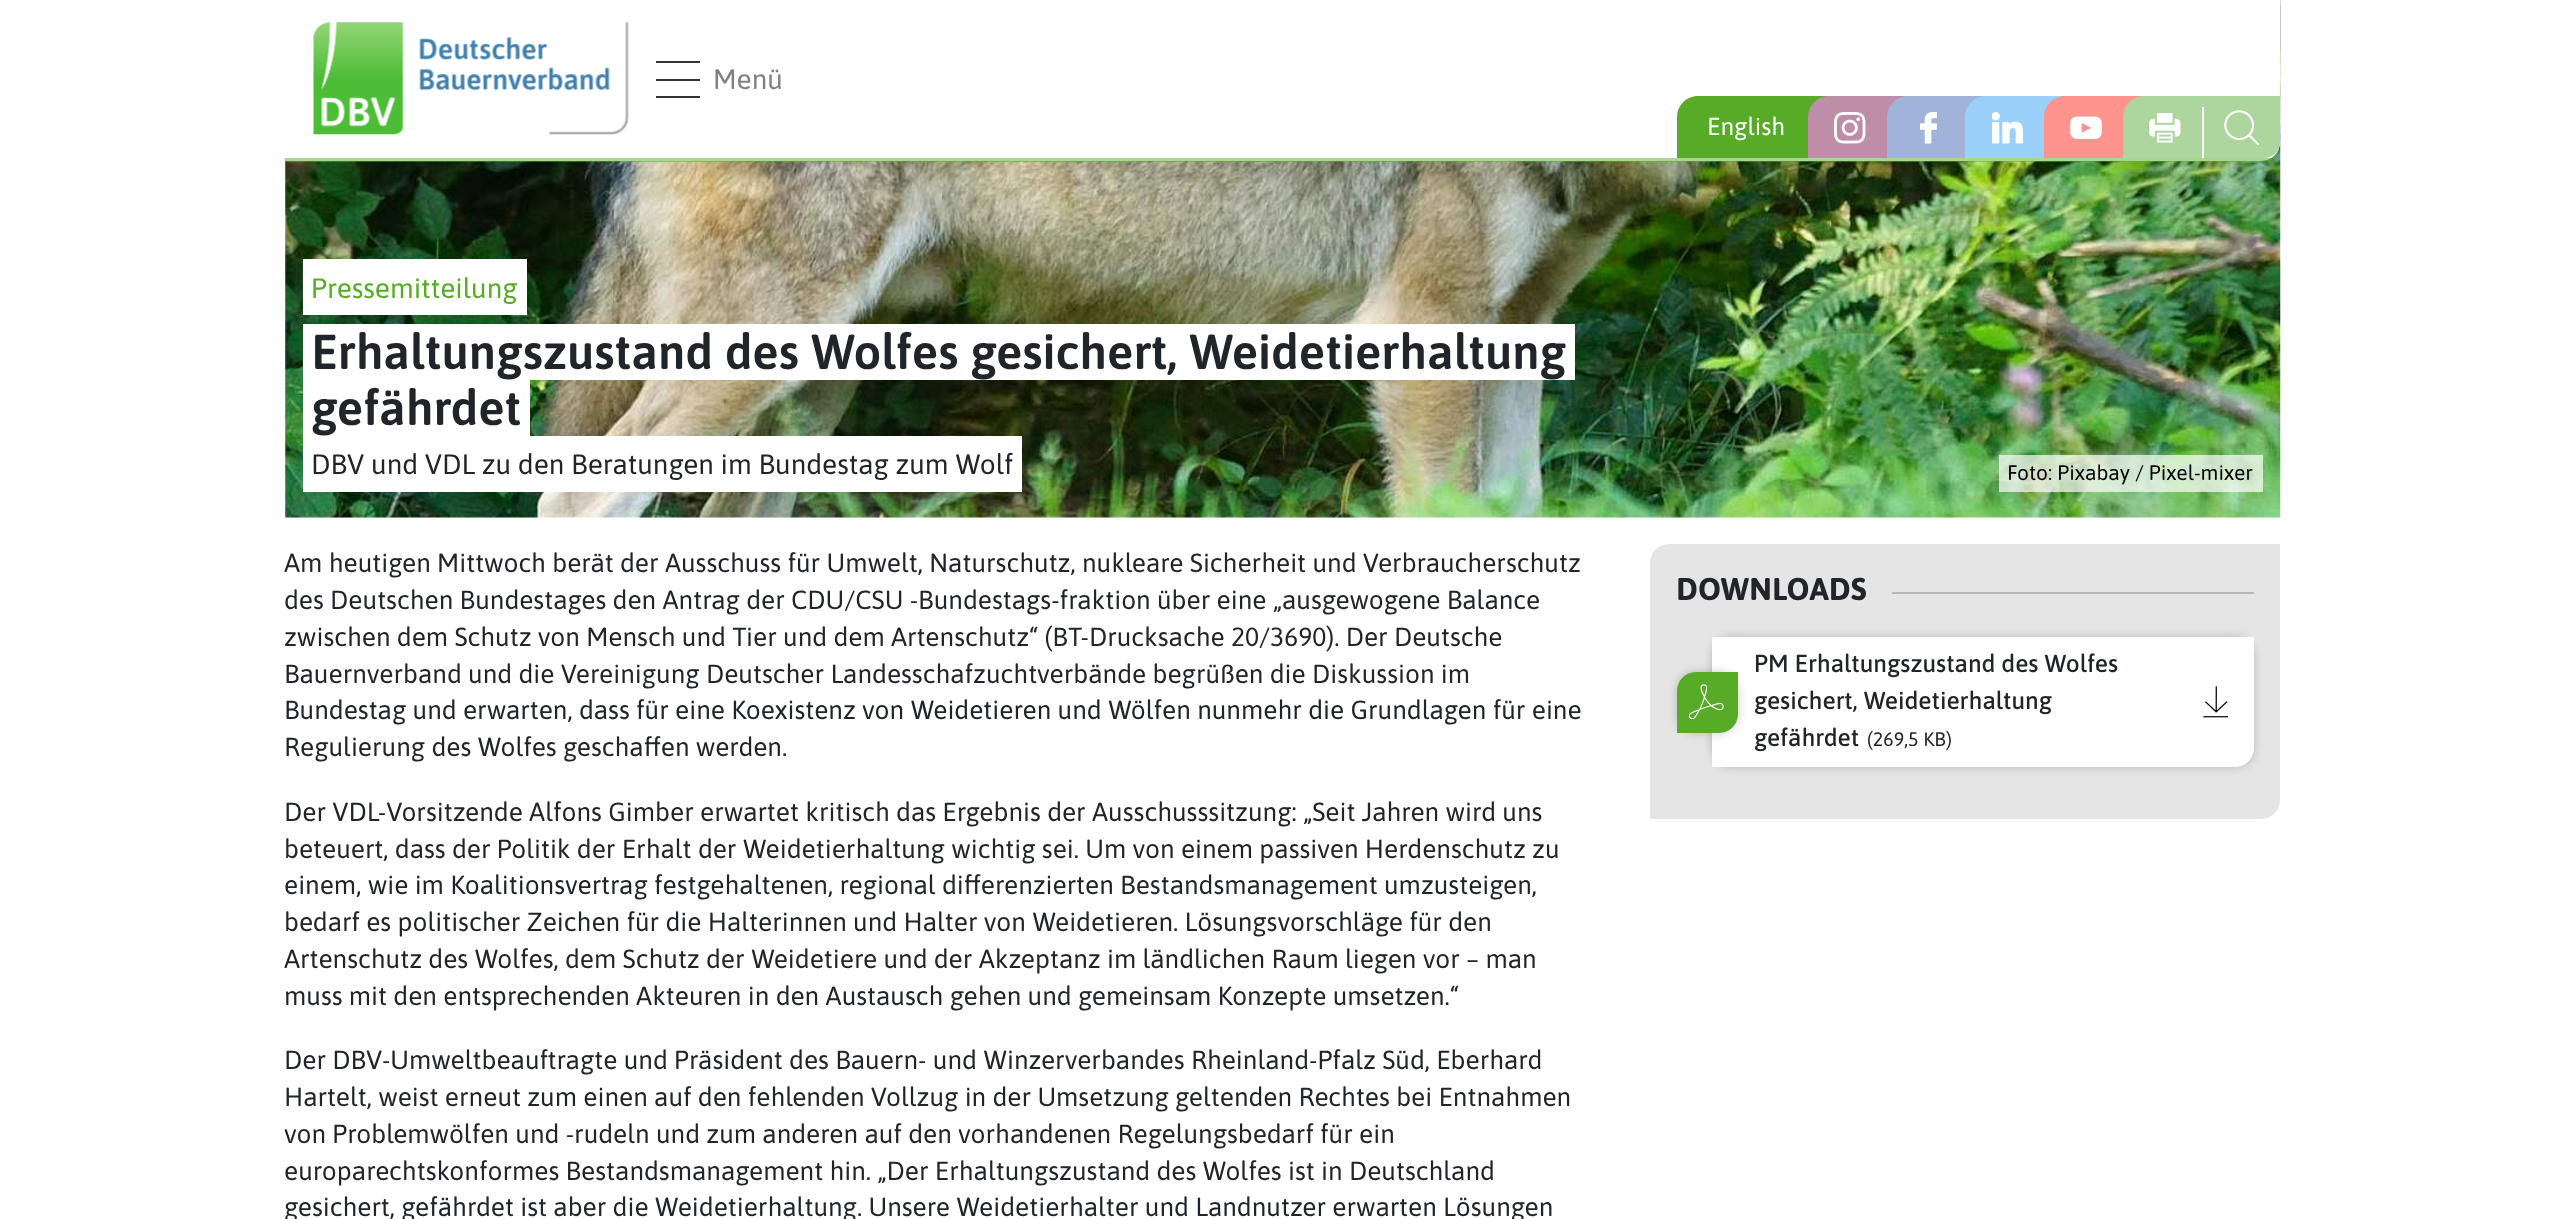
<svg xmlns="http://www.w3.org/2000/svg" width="2563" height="1219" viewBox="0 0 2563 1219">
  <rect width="100%" height="100%" fill="#fff"/>
  <image x="285" y="0" width="1996" height="518" href="img/8.png"/>
  <path d="M285 0H2280V142C2280 152.5 2271.5 161 2261 161H285Z" fill="#fff"/>
  <path d="M285 158h1987v4H285z" fill="#57ab2780"/>
  <image x="313" y="22" width="316" height="113" href="img/1.png"/>
  <path d="M656 61h44v2H656z" fill="#333"/>
  <path d="M656 79h44v2H656z" fill="#333"/>
  <path d="M656 96h44v2H656z" fill="#333"/>
  <path d="M1698 96H1852V137C1852 148.5 1842.5 158 1831 158H1677V117C1677 105.5 1686.5 96 1698 96Z" fill="#57ab27"/>
  <path d="M1829 96H1930V137C1930 148.5 1920.5 158 1909 158H1808V117C1808 105.5 1817.5 96 1829 96Z" fill="#be8da8"/>
  <image x="1834" y="112" width="32" height="32" href="img/2.png"/>
  <path d="M1908 96H2009V137C2009 148.5 1999.5 158 1988 158H1887V117C1887 105.5 1896.5 96 1908 96Z" fill="#a1b3d9"/>
  <image x="1920" y="112" width="17" height="32" href="img/3.png"/>
  <path d="M1986 96H2088V137C2088 148.5 2078.5 158 2067 158H1965V117C1965 105.5 1974.5 96 1986 96Z" fill="#9ad0f9"/>
  <image x="1992" y="112" width="31" height="32" href="img/4.png"/>
  <path d="M2065 96H2167V137C2167 148.5 2157.5 158 2146 158H2044V117C2044 105.5 2053.5 96 2065 96Z" fill="#ff938d"/>
  <image x="2070" y="116" width="32" height="23" href="img/5.png"/>
  <path d="M2144 96H2245V137C2245 148.5 2235.5 158 2224 158H2123V117C2123 105.5 2132.5 96 2144 96Z" fill="#add59e"/>
  <image x="2149" y="113" width="32" height="30" href="img/6.png"/>
  <path d="M2223 96H2280V142C2280 151 2273 158 2264 158H2202V117C2202 105.5 2211.5 96 2223 96Z" fill="#add59e"/>
  <image x="2224" y="110" width="35" height="35" href="img/7.png"/>
  <path d="M2202 107h2v51H2202z" fill="#fff"/>
  <path d="M303 259h9v56H303z" fill="#fff"/>
  <path d="M312 259h215v56H312z" fill="#fff"/>
  <path d="M303 324V380H1558H312V324Z" fill="#fff"/>
  <path d="M320 380H1575V324H1566V380Z" fill="#fff"/>
  <path d="M312 324h1254v56H312z" fill="#fff"/>
  <path d="M303 380V436H513H312V380Z" fill="#fff"/>
  <path d="M320 436H530V380H522V436Z" fill="#fff"/>
  <path d="M312 380h210v56H312z" fill="#fff"/>
  <path d="M303 436V492H1005H312V436Z" fill="#fff"/>
  <path d="M320 492H1022V436H1013V492Z" fill="#fff"/>
  <path d="M312 436h701v56H312z" fill="#fff"/>
  <path d="M1999 455V492H2245H2007V455Z" fill="#ffffffb3"/>
  <path d="M2016 492H2263V455H2254V492Z" fill="#ffffffb3"/>
  <path d="M2007 455h247v37H2007z" fill="#ffffffb3"/>
  <path d="M1669 544H2280V800C2280 810.5 2271.5 819 2261 819H1650V563C1650 552.5 1658.5 544 1669 544Z" fill="#e5e5e5"/>
  <path d="M1892 592h362v2H1892z" fill="#b7b7b7"/>
  <rect x="1712" y="637" width="542" height="130" rx="19" fill="#00000033" filter="blur(5px)"/>
  <path d="M1712 637H2254V748C2254 758.5 2245.5 767 2235 767H1712Z" fill="#fff"/>
  <rect x="1677" y="672" width="61" height="61" rx="19" fill="#00000033" filter="blur(5px)"/>
  <path d="M1696 672H1738V714C1738 724.5 1729.5 733 1719 733H1677V691C1677 680.5 1685.5 672 1696 672Z" fill="#57ab27"/>
  <image x="1689" y="684" width="35" height="35" href="img/9.png"/>
  <image x="2203" y="686" width="25" height="32" href="img/10.png"/>
  <text x="713" y="89" font-family="Asap" font-size="28" fill="#808080">Menü</text>
  <text x="1707" y="135" font-family="Asap" font-size="24.5" fill="#fff">English</text>
  <text x="311" y="298" font-family="Asap" font-size="28" fill="#57ab27">Pressemitteilung</text>
  <g font-family="Asap" font-size="49" font-weight="600" fill="#212529">
    <text x="311" y="369">Erhaltungszustand des Wolfes gesichert, Weidetierhaltung</text>
    <text x="311" y="425">gefährdet</text>
  </g>
  <text x="311" y="474" font-family="Asap" font-size="28" fill="#212529">DBV und VDL zu den Beratungen im Bundestag zum Wolf</text>
  <text x="2007" y="480" font-family="Asap" font-size="21" fill="#000">Foto: Pixabay / Pixel-mixer</text>
  <g font-family="Asap" font-size="26.25" fill="#212529">
    <text x="284" y="572">Am heutigen Mittwoch berät der Ausschuss für Umwelt, Naturschutz, nukleare Sicherheit und Verbraucherschutz</text>
    <text x="284" y="609">des Deutschen Bundestages den Antrag der CDU/CSU -Bundestags-fraktion über eine „ausgewogene Balance</text>
    <text x="284" y="646">zwischen dem Schutz von Mensch und Tier und dem Artenschutz“ (BT-Drucksache 20/3690). Der Deutsche</text>
    <text x="284" y="683">Bauernverband und die Vereinigung Deutscher Landesschafzuchtverbände begrüßen die Diskussion im</text>
    <text x="284" y="719">Bundestag und erwarten, dass für eine Koexistenz von Weidetieren und Wölfen nunmehr die Grundlagen für eine</text>
    <text x="284" y="756">Regulierung des Wolfes geschaffen werden.</text>
    <text x="284" y="821">Der VDL-Vorsitzende Alfons Gimber erwartet kritisch das Ergebnis der Ausschusssitzung: „Seit Jahren wird uns</text>
    <text x="284" y="858">beteuert, dass der Politik der Erhalt der Weidetierhaltung wichtig sei. Um von einem passiven Herdenschutz zu</text>
    <text x="284" y="894">einem, wie im Koalitionsvertrag festgehaltenen, regional differenzierten Bestandsmanagement umzusteigen,</text>
    <text x="284" y="931">bedarf es politischer Zeichen für die Halterinnen und Halter von Weidetieren. Lösungsvorschläge für den</text>
    <text x="284" y="968">Artenschutz des Wolfes, dem Schutz der Weidetiere und der Akzeptanz im ländlichen Raum liegen vor – man</text>
    <text x="284" y="1005">muss mit den entsprechenden Akteuren in den Austausch gehen und gemeinsam Konzepte umsetzen.“</text>
    <text x="284" y="1069">Der DBV-Umweltbeauftragte und Präsident des Bauern- und Winzerverbandes Rheinland-Pfalz Süd, Eberhard</text>
    <text x="284" y="1106">Hartelt, weist erneut zum einen auf den fehlenden Vollzug in der Umsetzung geltenden Rechtes bei Entnahmen</text>
    <text x="284" y="1143">von Problemwölfen und -rudeln und zum anderen auf den vorhandenen Regelungsbedarf für ein</text>
    <text x="284" y="1180">europarechtskonformes Bestandsmanagement hin. „Der Erhaltungszustand des Wolfes ist in Deutschland</text>
    <text x="284" y="1216">gesichert, gefährdet ist aber die Weidetierhaltung. Unsere Weidetierhalter und Landnutzer erwarten Lösungen</text>
  </g>
  <text x="1676" y="600" font-family="Asap" font-size="31.5" font-weight="bold" fill="#212529">DOWNLOADS</text>
  <g font-family="Asap" font-size="24.5" font-weight="500" fill="#212529">
    <text x="1754" y="672">PM Erhaltungszustand des Wolfes</text>
    <text x="1754" y="709">gesichert, Weidetierhaltung</text>
    <text x="1754" y="746">gefährdet</text>
  </g>
  <text x="1867" y="746" font-family="Asap" font-size="19.5" fill="#212529">(269,5 KB)</text>
</svg>
